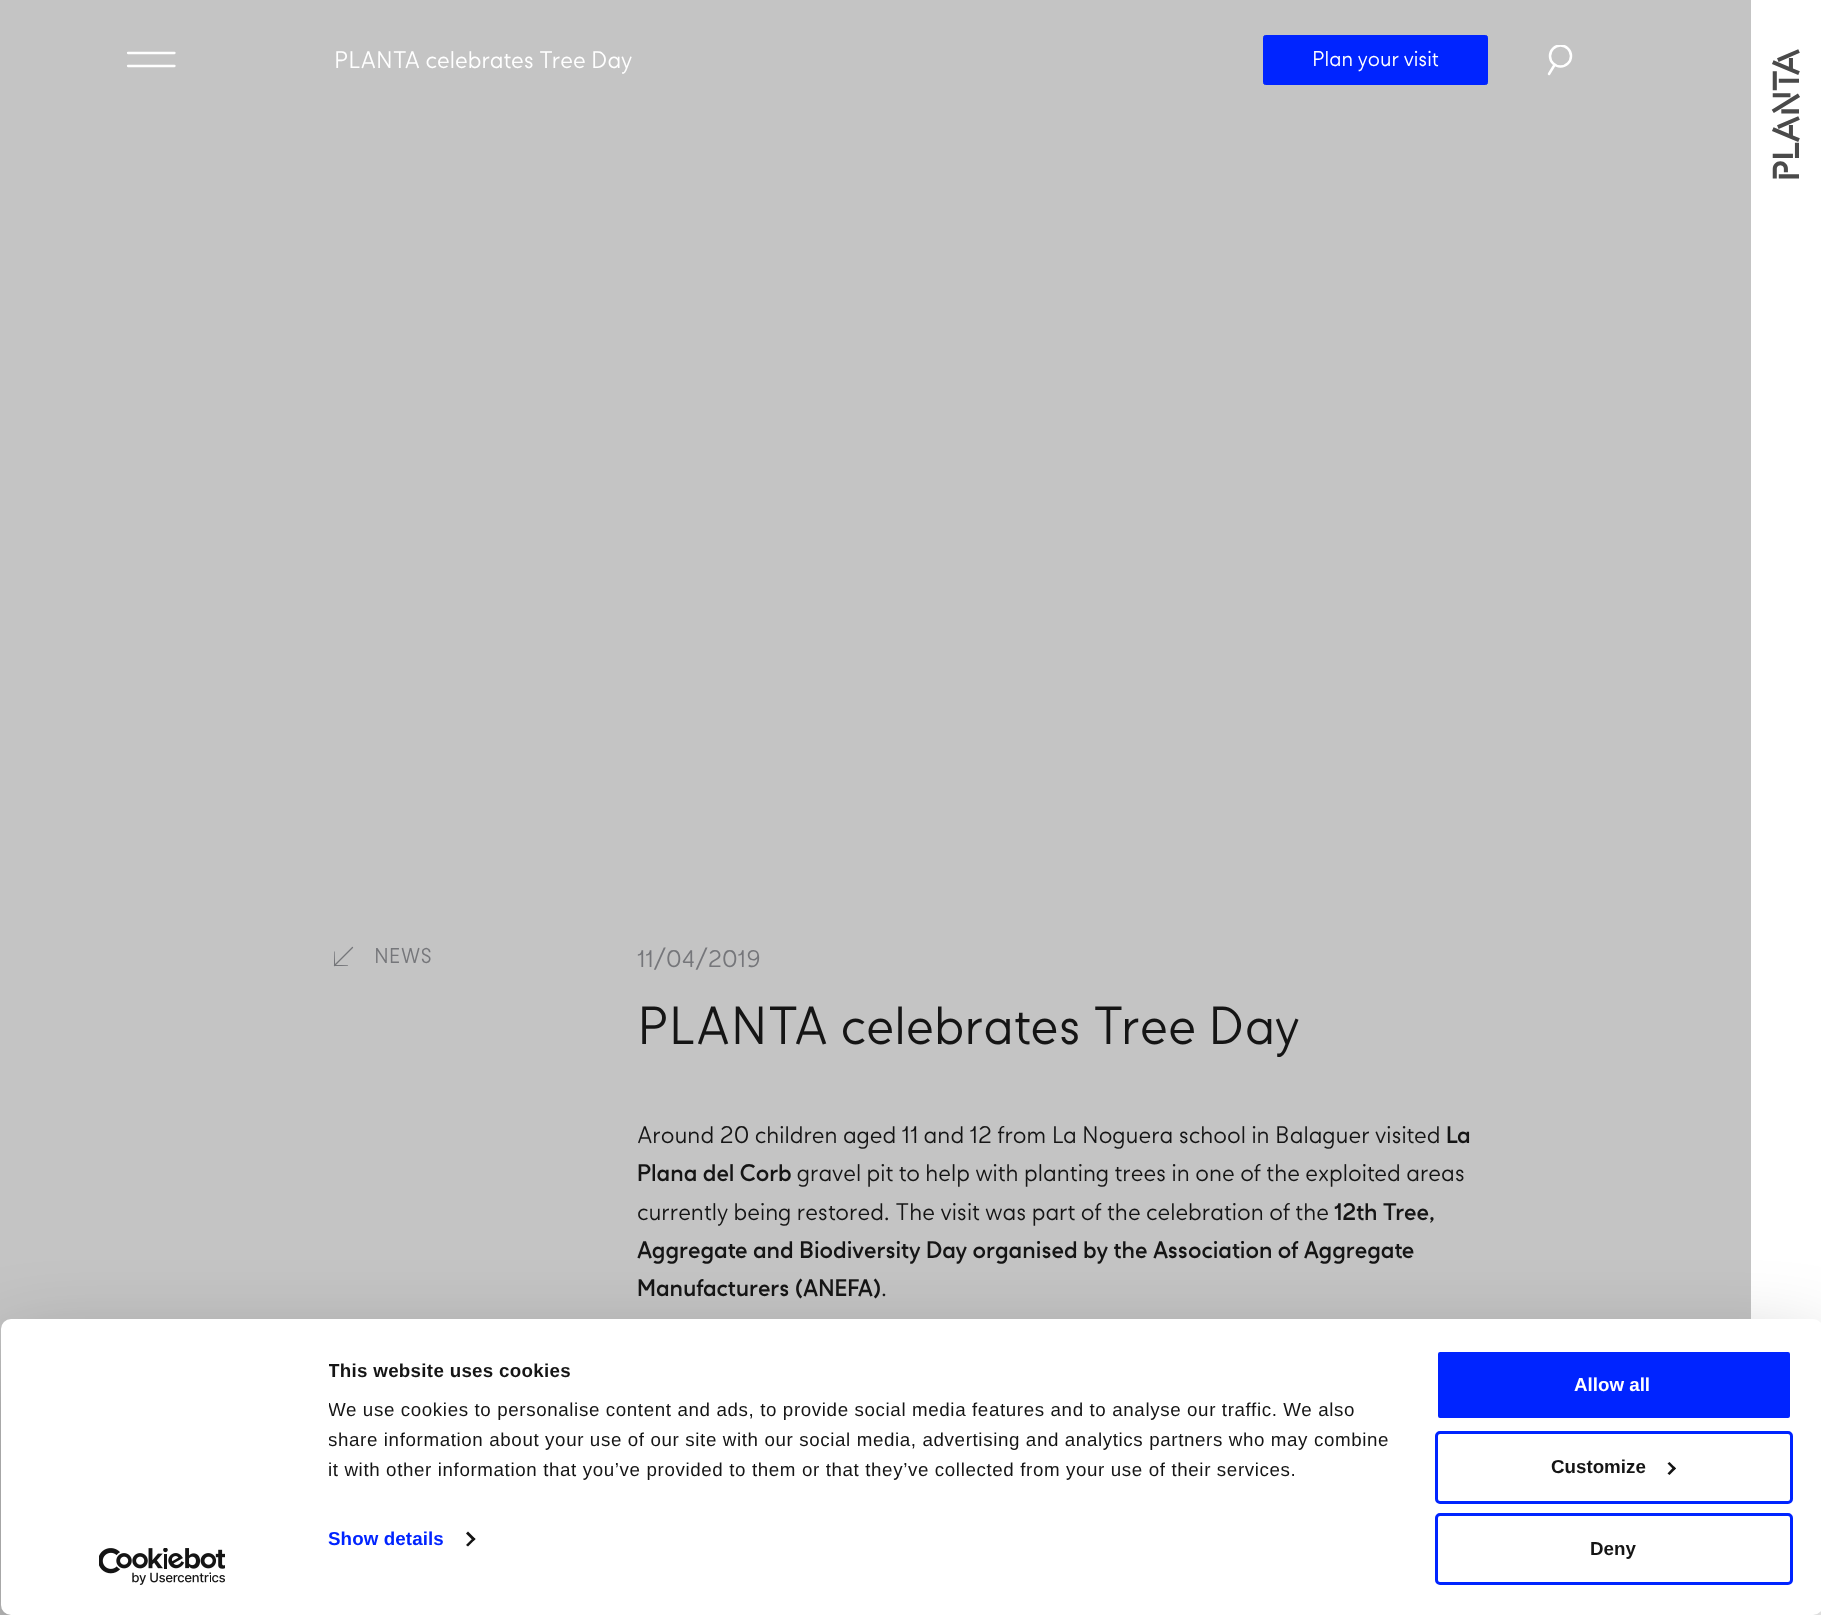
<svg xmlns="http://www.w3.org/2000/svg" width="1821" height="1615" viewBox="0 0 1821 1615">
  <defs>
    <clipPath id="clip1"><path d="M1548 45h25v31H1548z"/></clipPath>
    <clipPath id="clip2"><path d="M334 946h20v20H334z"/></clipPath>
    <clipPath id="clip3"><path d="M329 1356h1099v129H329z"/></clipPath>
  </defs>
  <rect width="100%" height="100%" fill="#c4c4c4"/>
  <path d="M128 53H174.5M128 66H174.5" fill="none" stroke="#fff" stroke-width="2.3" stroke-linecap="round"/>
  <rect x="1263.5" y="35.5" width="224" height="49" rx="2" fill="#0024ff" stroke="#0024ff"/>
  <g clip-path="url(#clip1)">
    <circle cx="1560.5" cy="56" r="10.5" fill="none" stroke="#fff" stroke-width="2.5"/>
  </g>
  <path d="M1549 74L1554.5 65Z" fill="none" stroke="#fff" stroke-width="2.5" stroke-linecap="round" stroke-linejoin="round"/>
  <path d="M1751 0h70v1615H1751z" fill="#fff"/>
  <g clip-path="url(#clip2)">
    <path d="M334 952L334.5 965.5L347.5 966" fill="none" stroke="#75767a" stroke-width="1.3" stroke-linecap="round"/>
  </g>
  <path d="M334.5 965.5L352.5 947.5" fill="none" stroke="#75767a" stroke-width="1.3" stroke-linecap="round"/>
  <rect x="1" y="1356" width="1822" height="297" rx="10" fill="#0000004d" filter="blur(44px)"/>
  <rect x="1" y="1319" width="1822" height="296" rx="10" fill="#fff"/>
  <path d="M468 1531.5L475.5 1539L473.5 1541L466 1533.5Z" fill="#141414"/>
  <path d="M473.5 1537.5L475.5 1539L468 1546.5L466 1545Z" fill="#141414"/>
  <rect x="1436.5" y="1350.5" width="355" height="69" rx="3.5" fill="#0024ff" stroke="#fff" stroke-width="3"/>
  <rect x="1436.5" y="1432.5" width="355" height="70" rx="3.5" fill="none" stroke="#0024ff" stroke-width="3"/>
  <path d="M1669.5 1462L1676 1468.5L1674 1470L1667.5 1463.5Z" fill="#141414"/>
  <path d="M1674 1466.5L1676 1468.5L1669.5 1475L1667.5 1473.5Z" fill="#141414"/>
  <rect x="1436.5" y="1514.5" width="355" height="69" rx="3.5" fill="none" stroke="#0024ff" stroke-width="3"/>
  <image x="99" y="1548" width="126" height="37" href="img/1.png"/>
  <text x="334" y="68" font-family="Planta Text" font-size="22.5" fill="#fff">PLANTA celebrates Tree Day</text>
  <text x="1312" y="66" font-family="Planta Text" font-size="20" fill="#fff">Plan your visit</text>
  <text x="1799" y="181" transform="rotate(-90 1799 181)" font-family="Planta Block" font-size="35" fill="#4a4a4a">PLANTA</text>
  <text x="374" y="963" font-family="Planta Text" font-size="20" fill="#75767a">NEWS</text>
  <text x="637" y="967" font-family="Planta Text" font-size="22.5" fill="#75767a">11/04/2019</text>
  <text x="637" y="1044" font-family="Planta Text" font-size="50" fill="#151515">PLANTA celebrates Tree Day</text>
  <text x="637" y="1143" font-family="Planta Text" font-size="22.5" fill="#151515">Around 20 children aged 11 and 12 from La Noguera school in Balaguer visited</text>
  <g font-family="Planta Text" font-size="22.5" font-weight="bold" fill="#151515">
    <text x="1446" y="1143">La</text>
    <text x="637" y="1181">Plana del Corb</text>
  </g>
  <g font-family="Planta Text" font-size="22.5" fill="#151515">
    <text x="797" y="1181">gravel pit to help with planting trees in one of the exploited areas</text>
    <text x="637" y="1220">currently being restored. The visit was part of the celebration of the</text>
  </g>
  <g font-family="Planta Text" font-size="22.5" font-weight="bold" fill="#151515">
    <text x="1334" y="1220">12th Tree,</text>
    <text x="637" y="1258">Aggregate and Biodiversity Day organised by the Association of Aggregate</text>
    <text x="637" y="1296">Manufacturers (ANEFA)</text>
  </g>
  <text x="881" y="1296" font-family="Planta Text" font-size="22.5" fill="#151515">.</text>
  <g clip-path="url(#clip3)">
    <text x="328" y="1377" font-family="Liberation Sans" font-size="18.75" font-weight="bold" letter-spacing="0.3" fill="#151515">This website uses cookies</text>
    <g font-family="Liberation Sans" font-size="18.75" letter-spacing="0.62" fill="#151515">
      <text x="328" y="1416">We use cookies to personalise content and ads, to provide social media features and to analyse our traffic. We also</text>
      <text x="328" y="1446">share information about your use of our site with our social media, advertising and analytics partners who may combine</text>
      <text x="328" y="1476">it with other information that you’ve provided to them or that they’ve collected from your use of their services.</text>
    </g>
  </g>
  <text x="328" y="1545" font-family="Liberation Sans" font-size="18.75" font-weight="bold" letter-spacing="0.1" fill="#0024ff">Show details</text>
  <text x="1574" y="1391" font-family="Liberation Sans" font-size="18.75" font-weight="bold" fill="#fff">Allow all</text>
  <g font-family="Liberation Sans" font-size="18.75" font-weight="bold" fill="#151515">
    <text x="1551" y="1473">Customize</text>
    <text x="1590" y="1555">Deny</text>
  </g>
</svg>
